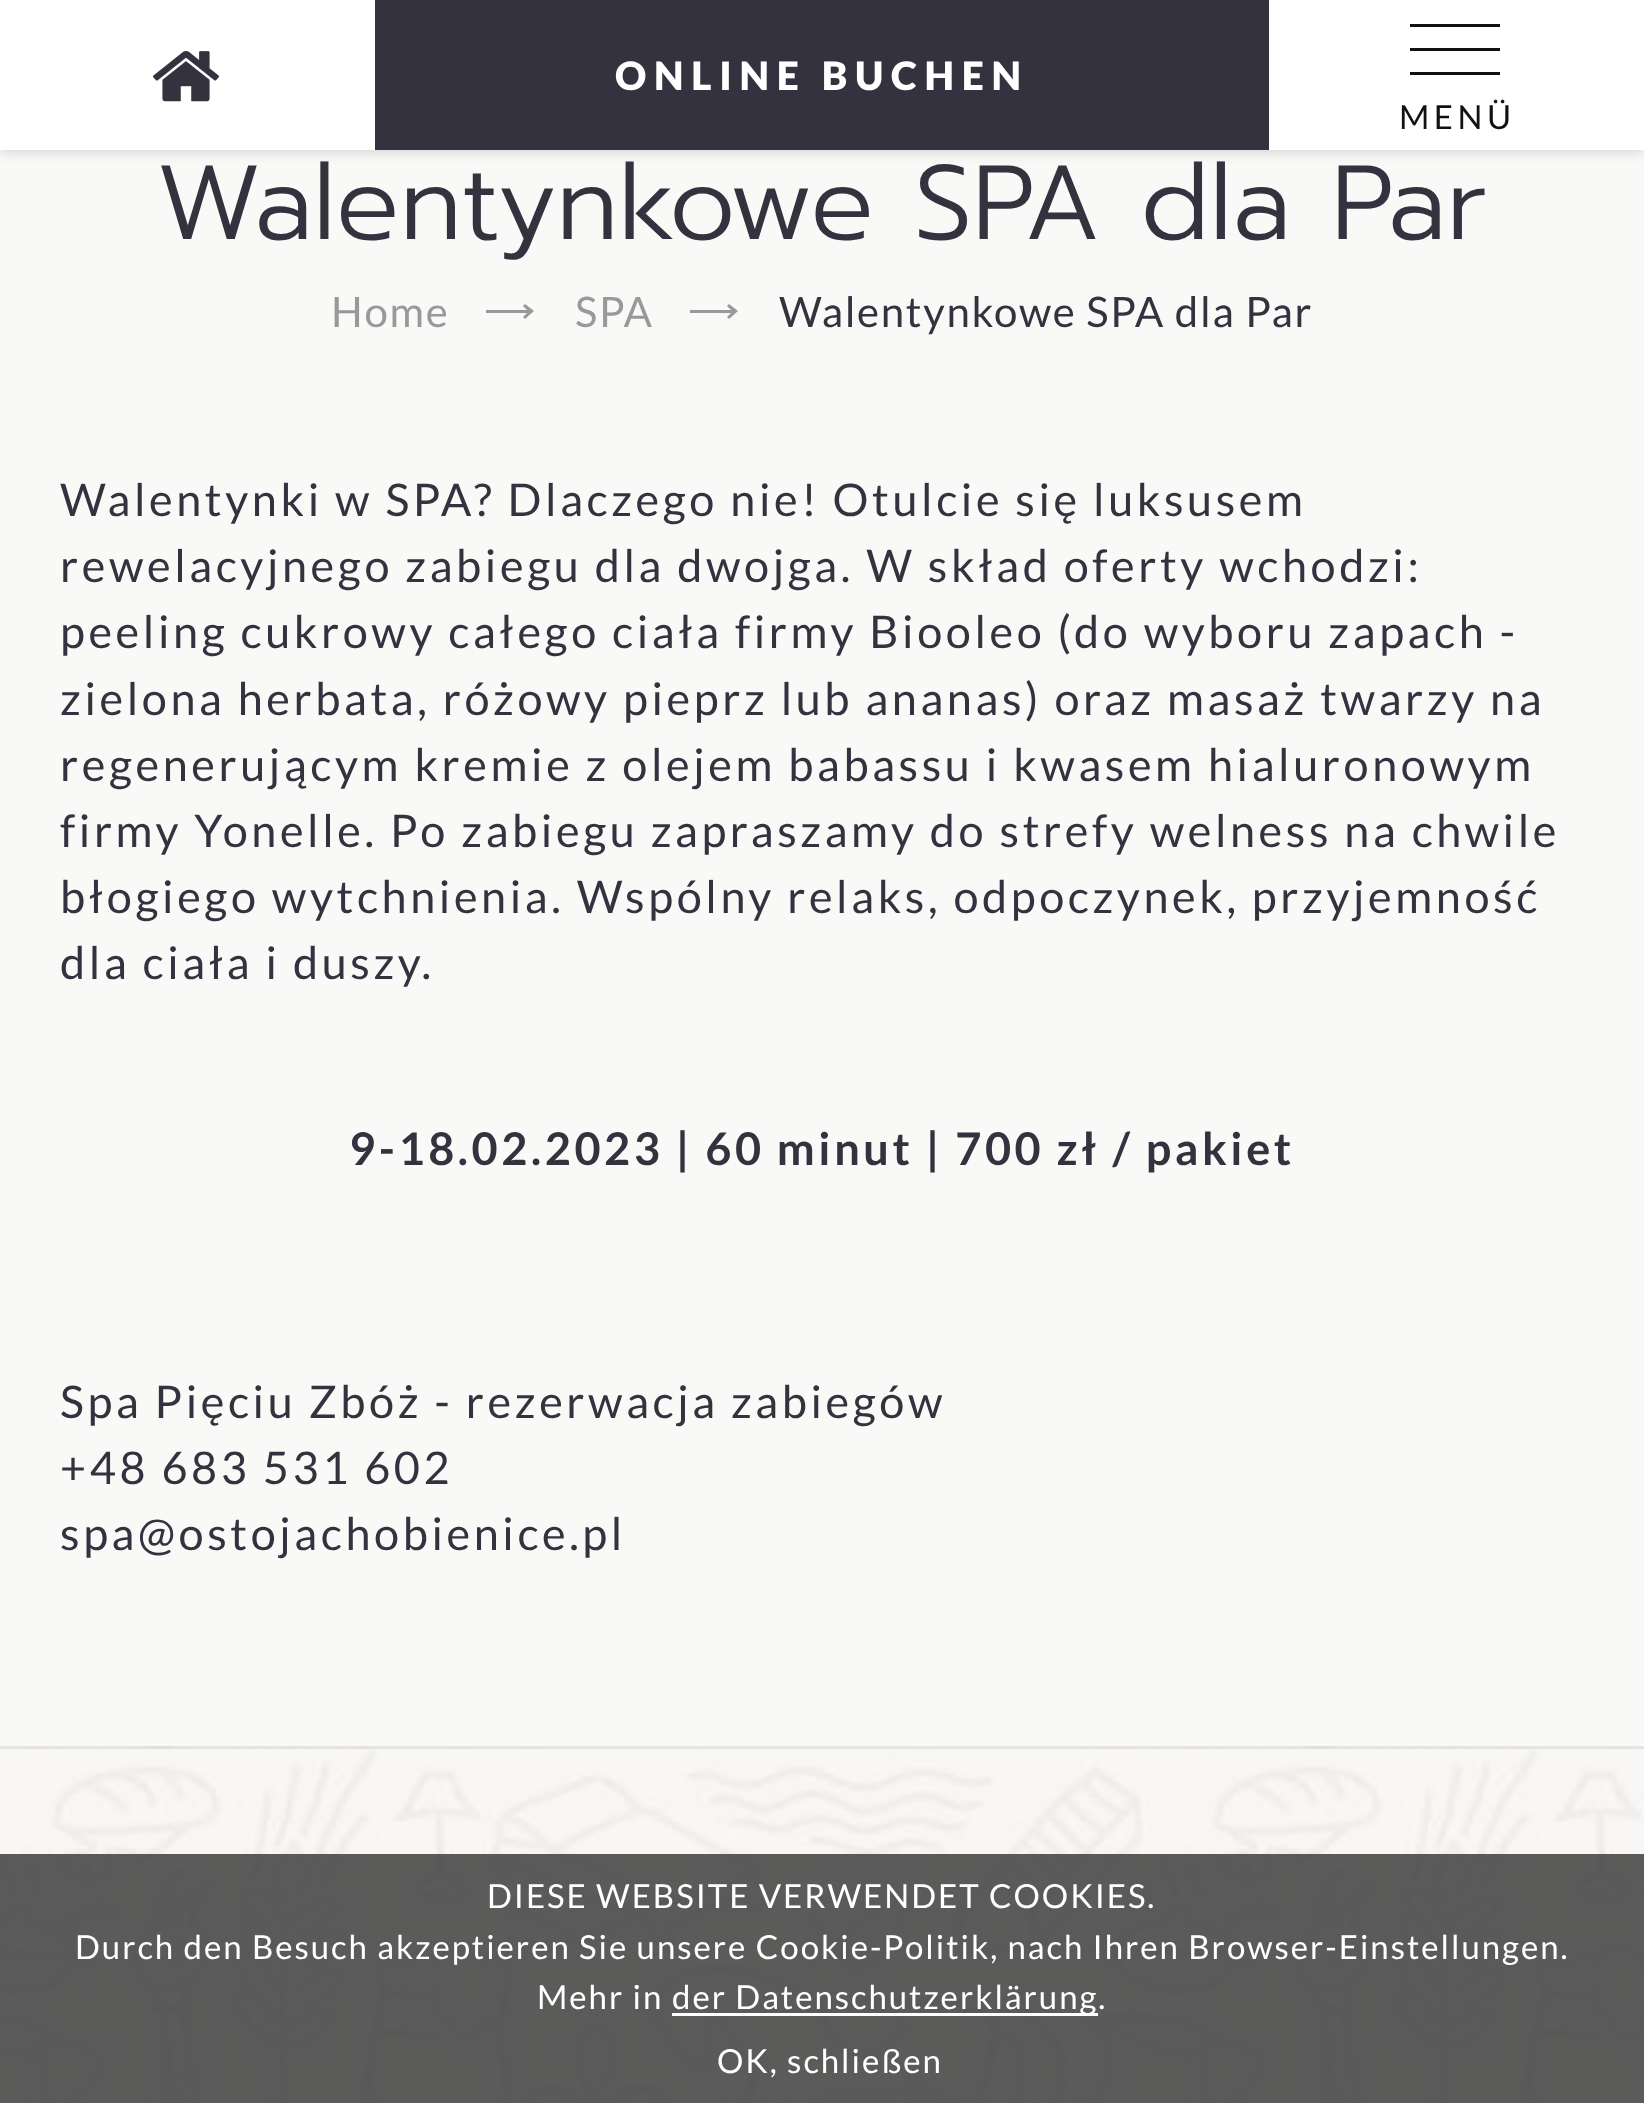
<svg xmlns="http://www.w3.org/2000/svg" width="1644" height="2103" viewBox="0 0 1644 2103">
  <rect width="100%" height="100%" fill="#f9f9f7"/>
  <path d="M0 0h1644v150H0z" fill="#00000033" filter="blur(7.5px)"/>
  <path d="M0 0h1644v150H0z" fill="#fff"/>
  <image x="153" y="51" width="66" height="51" href="img/1.png"/>
  <path d="M375 0h894v150H375z" fill="#34323f"/>
  <path d="M1410 24h90v3H1410z" fill="#111"/>
  <path d="M1410 48h90v3H1410z" fill="#111"/>
  <path d="M1410 72h90v3H1410z" fill="#111"/>
  <path d="M525 304L523 306L527 310H486V313H527L523 317L525 319L534 311Z" fill="#999"/>
  <path d="M729 304L727 306L731 310H690V313H731L727 317L729 319L738 311Z" fill="#999"/>
  <image x="0" y="1746" width="1644" height="357" href="img/2.png"/>
  <path d="M0 1746h1644v3H0z" fill="#cdcdcd73"/>
  <path d="M0 1854h1644v249H0z" fill="#333333cc"/>
  <path d="M672 2013h426v3H672z" fill="#fff"/>
  <text x="615" y="90" font-family="Lato" font-size="39" font-weight="900" letter-spacing="7.75" fill="#fff">ONLINE BUCHEN</text>
  <text x="1399" y="129" font-family="Lato" font-size="33" letter-spacing="4.5" fill="#111">MENÜ</text>
  <text x="156" y="239" font-family="Prompt" font-size="105" font-weight="300" fill="#34323f">Walentynkowe SPA dla Par</text>
  <g font-family="Lato" font-size="42" letter-spacing="1.7" fill="#999">
    <text x="331" y="327">Home</text>
    <text x="575" y="327">SPA</text>
  </g>
  <text x="779" y="327" font-family="Lato" font-size="42" letter-spacing="1.7" fill="#34323f">Walentynkowe SPA dla Par</text>
  <g font-family="Lato" font-size="45" letter-spacing="3.6" fill="#34323f">
    <text x="60" y="516">Walentynki w SPA? Dlaczego nie! Otulcie się luksusem</text>
    <text x="60" y="582">rewelacyjnego zabiegu dla dwojga. W skład oferty wchodzi:</text>
    <text x="60" y="648">peeling cukrowy całego ciała firmy Biooleo (do wyboru zapach -</text>
    <text x="60" y="715">zielona herbata, różowy pieprz lub ananas) oraz masaż twarzy na</text>
    <text x="60" y="781">regenerującym kremie z olejem babassu i kwasem hialuronowym</text>
    <text x="60" y="847">firmy Yonelle. Po zabiegu zapraszamy do strefy welness na chwile</text>
    <text x="60" y="913">błogiego wytchnienia. Wspólny relaks, odpoczynek, przyjemność</text>
    <text x="60" y="979">dla ciała i duszy.</text>
  </g>
  <text x="349" y="1165" font-family="Lato" font-size="45" font-weight="bold" letter-spacing="3.6" fill="#34323f">9-18.02.2023 | 60 minut | 700 zł / pakiet</text>
  <g font-family="Lato" font-size="45" letter-spacing="3.6" fill="#34323f">
    <text x="60" y="1418">Spa Pięciu Zbóż - rezerwacja zabiegów</text>
    <text x="60" y="1484">+48 683 531 602</text>
    <text x="60" y="1550">spa@ostojachobienice.pl</text>
  </g>
  <g font-family="Lato" font-size="33" letter-spacing="1.98" fill="#fff">
    <text x="487" y="1908">DIESE WEBSITE VERWENDET COOKIES.</text>
    <text x="75" y="1959">Durch den Besuch akzeptieren Sie unsere Cookie-Politik, nach Ihren Browser-Einstellungen.</text>
    <text x="537" y="2009">Mehr in</text>
    <text x="672" y="2009">der Datenschutzerklärung.</text>
    <text x="717" y="2073">OK, schließen</text>
  </g>
</svg>
